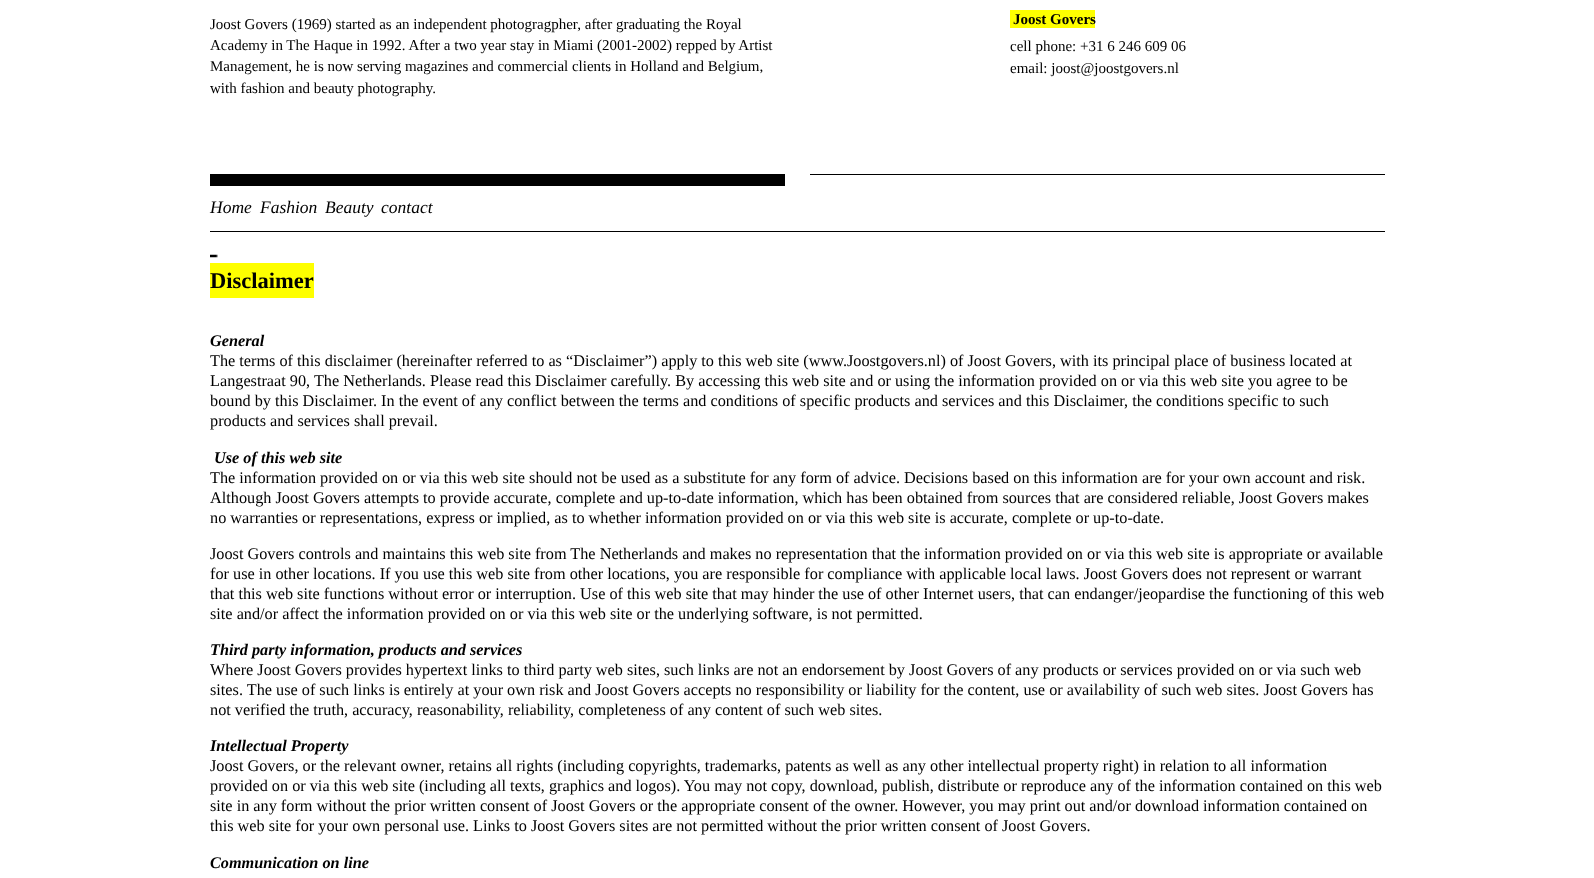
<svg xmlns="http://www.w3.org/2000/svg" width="1594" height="878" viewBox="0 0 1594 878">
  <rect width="100%" height="100%" fill="#fff"/>
  <path d="M210 174h575v12H210z" fill="#000"/>
  <path d="M810 174h575v1H810z" fill="#000"/>
  <path d="M1010 10h85v18H1010z" fill="#feff00"/>
  <path d="M210 231h1175v1H210z" fill="#000"/>
  <image x="210" y="254" width="8" height="4" href="img/1.png"/>
  <path d="M210 263h104v35H210z" fill="#feff00"/>
  <g font-family="Liberation Serif" font-size="15" fill="#000">
    <text x="210" y="29">Joost Govers (1969) started as an independent photogragpher, after graduating the Royal</text>
    <text x="210" y="50">Academy in The Haque in 1992. After a two year stay in Miami (2001-2002) repped by Artist</text>
    <text x="210" y="71">Management, he is now serving magazines and commercial clients in Holland and Belgium,</text>
    <text x="210" y="93">with fashion and beauty photography.</text>
  </g>
  <text x="1013" y="24" font-family="Liberation Serif" font-size="15" font-weight="bold" fill="#000">Joost Govers</text>
  <g font-family="Liberation Serif" font-size="15" fill="#000">
    <text x="1010" y="51">cell phone: +31 6 246 609 06</text>
    <text x="1010" y="73">email: joost@joostgovers.nl</text>
  </g>
  <g font-family="Liberation Serif" font-size="17.5" font-style="italic" fill="#000">
    <text x="210" y="213">Home</text>
    <text x="260" y="213">Fashion</text>
    <text x="325" y="213">Beauty</text>
    <text x="381" y="213">contact</text>
  </g>
  <text x="210" y="288" font-family="Liberation Serif" font-size="22.5" font-weight="bold" fill="#000">Disclaimer</text>
  <text x="210" y="346" font-family="Liberation Serif" font-size="16.25" font-weight="bold" font-style="italic" fill="#000">General</text>
  <g font-family="Liberation Serif" font-size="16.25" fill="#000">
    <text x="210" y="366">The terms of this disclaimer (hereinafter referred to as “Disclaimer”) apply to this web site (www.Joostgovers.nl) of Joost Govers, with its principal place of business located at</text>
    <text x="210" y="386">Langestraat 90, The Netherlands. Please read this Disclaimer carefully. By accessing this web site and or using the information provided on or via this web site you agree to be</text>
    <text x="210" y="406">bound by this Disclaimer. In the event of any conflict between the terms and conditions of specific products and services and this Disclaimer, the conditions specific to such</text>
    <text x="210" y="426">products and services shall prevail.</text>
  </g>
  <text x="214" y="463" font-family="Liberation Serif" font-size="16.25" font-weight="bold" font-style="italic" fill="#000">Use of this web site</text>
  <g font-family="Liberation Serif" font-size="16.25" fill="#000">
    <text x="210" y="483">The information provided on or via this web site should not be used as a substitute for any form of advice. Decisions based on this information are for your own account and risk.</text>
    <text x="210" y="503">Although Joost Govers attempts to provide accurate, complete and up-to-date information, which has been obtained from sources that are considered reliable, Joost Govers makes</text>
    <text x="210" y="523">no warranties or representations, express or implied, as to whether information provided on or via this web site is accurate, complete or up-to-date.</text>
    <text x="210" y="559">Joost Govers controls and maintains this web site from The Netherlands and makes no representation that the information provided on or via this web site is appropriate or available</text>
    <text x="210" y="579">for use in other locations. If you use this web site from other locations, you are responsible for compliance with applicable local laws. Joost Govers does not represent or warrant</text>
    <text x="210" y="599">that this web site functions without error or interruption. Use of this web site that may hinder the use of other Internet users, that can endanger/jeopardise the functioning of this web</text>
    <text x="210" y="619">site and/or affect the information provided on or via this web site or the underlying software, is not permitted.</text>
  </g>
  <text x="210" y="655" font-family="Liberation Serif" font-size="16.25" font-weight="bold" font-style="italic" fill="#000">Third party information, products and services</text>
  <g font-family="Liberation Serif" font-size="16.25" fill="#000">
    <text x="210" y="675">Where Joost Govers provides hypertext links to third party web sites, such links are not an endorsement by Joost Govers of any products or services provided on or via such web</text>
    <text x="210" y="695">sites. The use of such links is entirely at your own risk and Joost Govers accepts no responsibility or liability for the content, use or availability of such web sites. Joost Govers has</text>
    <text x="210" y="715">not verified the truth, accuracy, reasonability, reliability, completeness of any content of such web sites.</text>
  </g>
  <text x="210" y="751" font-family="Liberation Serif" font-size="16.25" font-weight="bold" font-style="italic" fill="#000">Intellectual Property</text>
  <g font-family="Liberation Serif" font-size="16.25" fill="#000">
    <text x="210" y="771">Joost Govers, or the relevant owner, retains all rights (including copyrights, trademarks, patents as well as any other intellectual property right) in relation to all information</text>
    <text x="210" y="791">provided on or via this web site (including all texts, graphics and logos). You may not copy, download, publish, distribute or reproduce any of the information contained on this web</text>
    <text x="210" y="811">site in any form without the prior written consent of Joost Govers or the appropriate consent of the owner. However, you may print out and/or download information contained on</text>
    <text x="210" y="831">this web site for your own personal use. Links to Joost Govers sites are not permitted without the prior written consent of Joost Govers.</text>
  </g>
  <text x="210" y="868" font-family="Liberation Serif" font-size="16.25" font-weight="bold" font-style="italic" fill="#000">Communication on line</text>
</svg>
